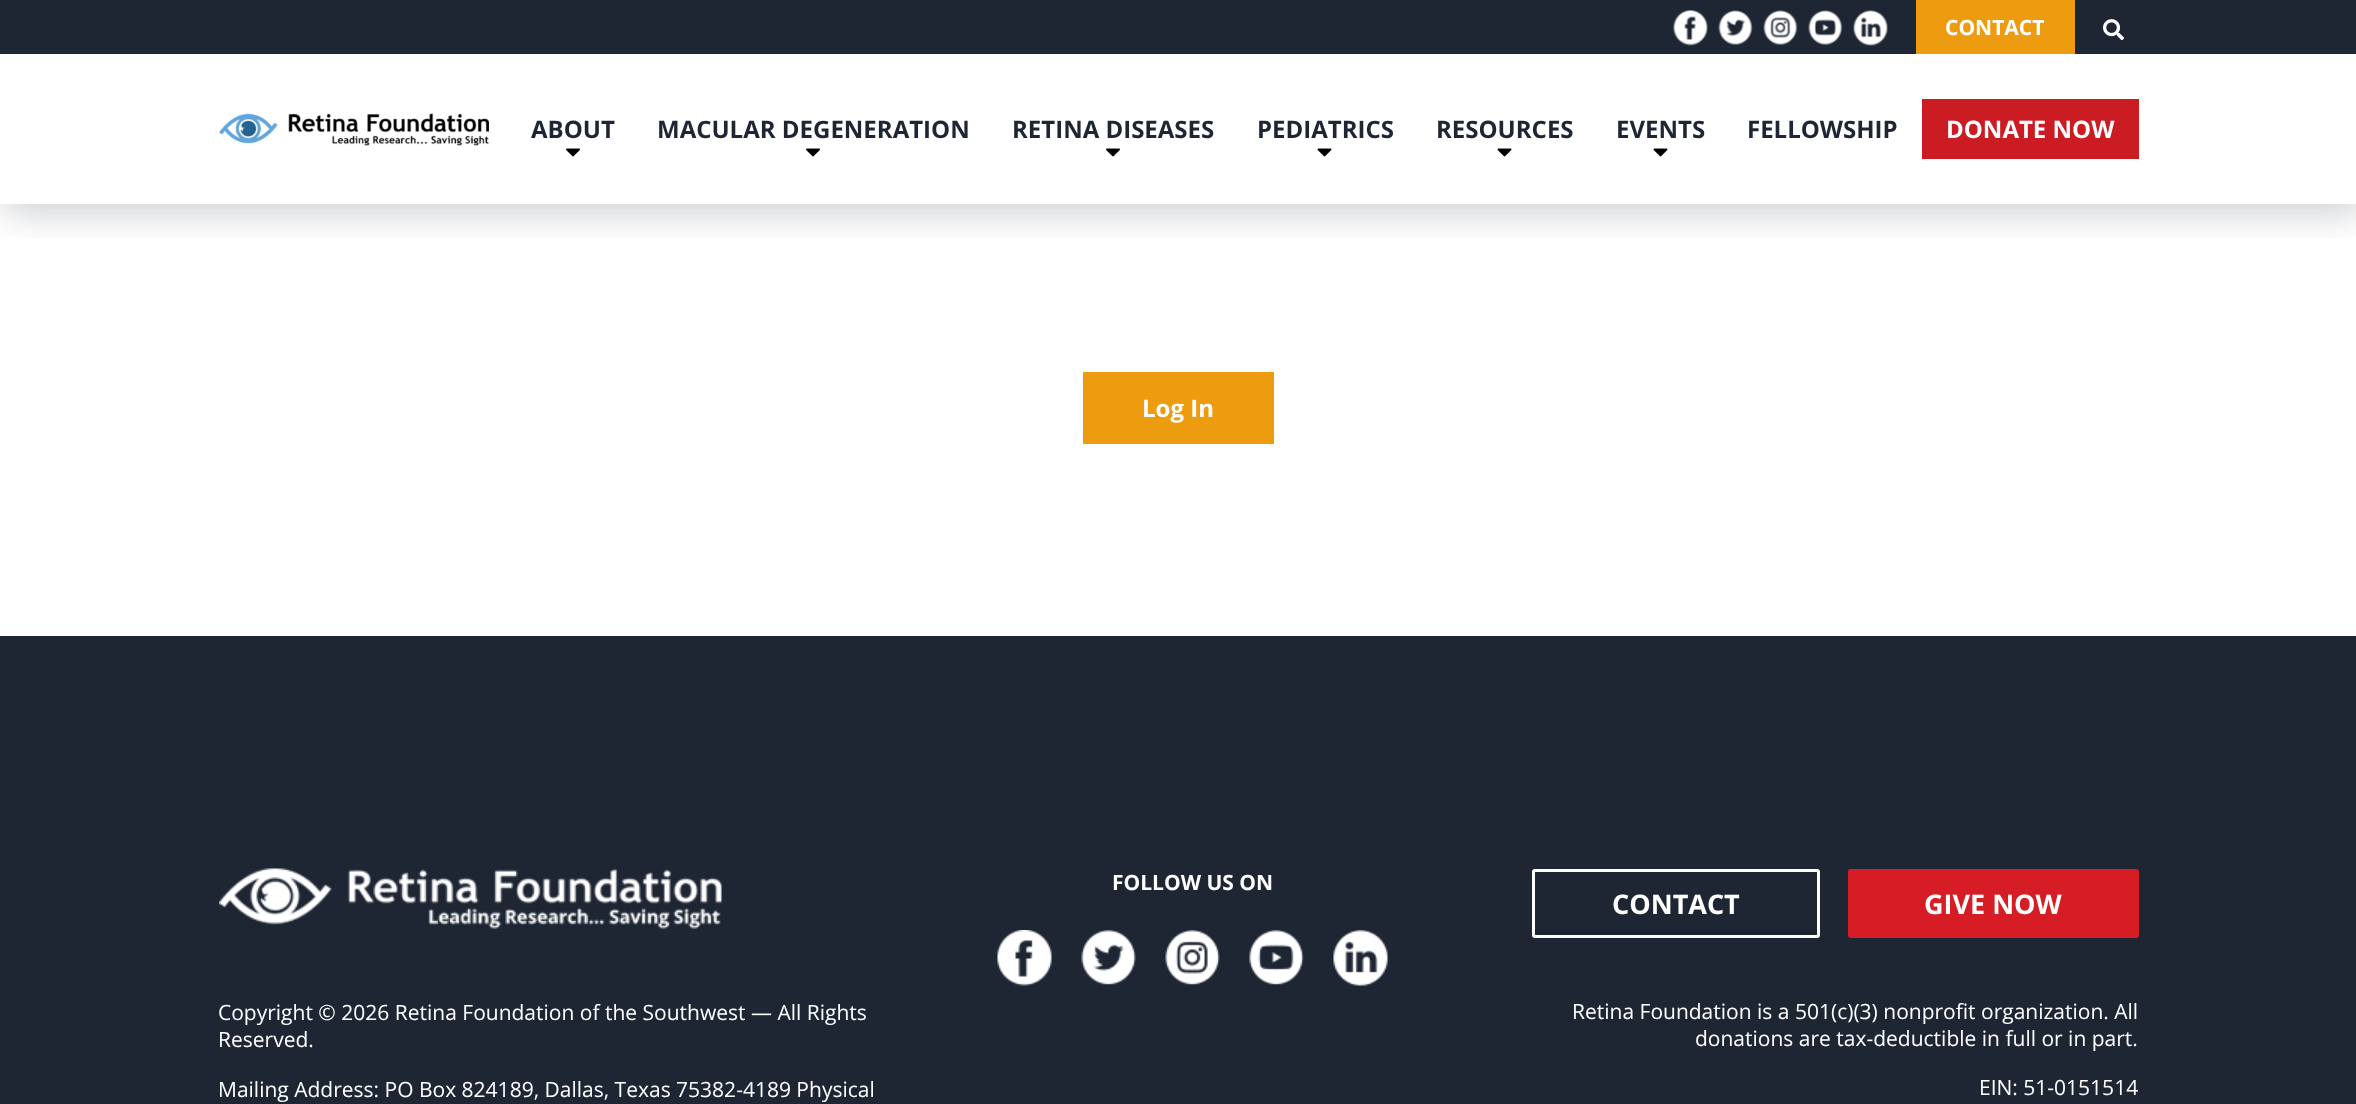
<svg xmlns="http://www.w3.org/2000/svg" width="2356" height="1104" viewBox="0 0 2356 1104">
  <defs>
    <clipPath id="clip1"><path d="M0 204h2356v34H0z"/></clipPath>
  </defs>
  <rect width="100%" height="100%" fill="#fff"/>
  <g clip-path="url(#clip1)">
    <path d="M3 5h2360v207H3z" fill="#1e26343b" filter="blur(19px)"/>
  </g>
  <path d="M0 0h2356v54H0z" fill="#1e2634"/>
  <image x="1673" y="10" width="35" height="36" href="img/1.png"/>
  <image x="1718" y="10" width="35" height="35" href="img/2.png"/>
  <image x="1763" y="10" width="35" height="35" href="img/3.png"/>
  <image x="1808" y="10" width="35" height="35" href="img/4.png"/>
  <image x="1853" y="10" width="35" height="36" href="img/5.png"/>
  <path d="M1916 0h159v54H1916z" fill="#ee9c0f"/>
  <image x="2103" y="19" width="21" height="22" href="img/6.png"/>
  <image x="219" y="113" width="270" height="33" href="img/7.png"/>
  <image x="566" y="148" width="14" height="9" href="img/8.png"/>
  <image x="806" y="148" width="14" height="9" href="img/8.png"/>
  <image x="1106" y="148" width="14" height="9" href="img/8.png"/>
  <image x="1317" y="148" width="15" height="9" href="img/9.png"/>
  <image x="1497" y="148" width="15" height="9" href="img/9.png"/>
  <image x="1653" y="148" width="15" height="9" href="img/9.png"/>
  <path d="M1922 99h217v60H1922z" fill="#cb1c24"/>
  <path d="M1083 372h191v72H1083z" fill="#ee9c0f"/>
  <path d="M0 636h2356v468H0z" fill="#1e2634"/>
  <image x="997" y="930" width="55" height="56" href="img/10.png"/>
  <image x="1081" y="930" width="55" height="55" href="img/11.png"/>
  <image x="1165" y="930" width="55" height="55" href="img/12.png"/>
  <image x="1249" y="930" width="55" height="55" href="img/13.png"/>
  <image x="1333" y="930" width="55" height="56" href="img/14.png"/>
  <image x="219" y="868" width="503" height="61" href="img/15.png"/>
  <rect x="1533.5" y="870.5" width="285" height="66" rx="1.5" fill="none" stroke="#fff" stroke-width="3"/>
  <rect x="1848" y="869" width="291" height="69" rx="3" fill="#d61c24"/>
  <text x="1945" y="35" font-family="Open Sans" font-size="21" font-weight="bold" fill="#fff">CONTACT</text>
  <g font-family="Open Sans" font-size="24" font-weight="bold" fill="#1e2634">
    <text x="531" y="138">ABOUT</text>
    <text x="657" y="138">MACULAR DEGENERATION</text>
    <text x="1012" y="138">RETINA DISEASES</text>
    <text x="1257" y="138">PEDIATRICS</text>
    <text x="1436" y="138">RESOURCES</text>
    <text x="1616" y="138">EVENTS</text>
    <text x="1747" y="138">FELLOWSHIP</text>
  </g>
  <g font-family="Open Sans" font-size="24" font-weight="bold" fill="#fff">
    <text x="1946" y="138">DONATE NOW</text>
    <text x="1142" y="417">Log In</text>
  </g>
  <text x="1112" y="890" font-family="Open Sans" font-size="21" font-weight="bold" fill="#fff">FOLLOW US ON</text>
  <g font-family="Open Sans" font-size="21" fill="#fff">
    <text x="218" y="1020">Copyright © 2026 Retina Foundation of the Southwest — All Rights</text>
    <text x="218" y="1047">Reserved.</text>
    <text x="218" y="1097">Mailing Address: PO Box 824189, Dallas, Texas 75382-4189 Physical</text>
  </g>
  <g font-family="Open Sans" font-size="27" font-weight="bold" fill="#fff">
    <text x="1612" y="914">CONTACT</text>
    <text x="1924" y="914">GIVE NOW</text>
  </g>
  <g font-family="Open Sans" font-size="21" fill="#fff">
    <text x="1572" y="1019">Retina Foundation is a 501(c)(3) nonprofit organization. All</text>
    <text x="1695" y="1046">donations are tax-deductible in full or in part.</text>
    <text x="1979" y="1095">EIN: 51-0151514</text>
  </g>
</svg>
